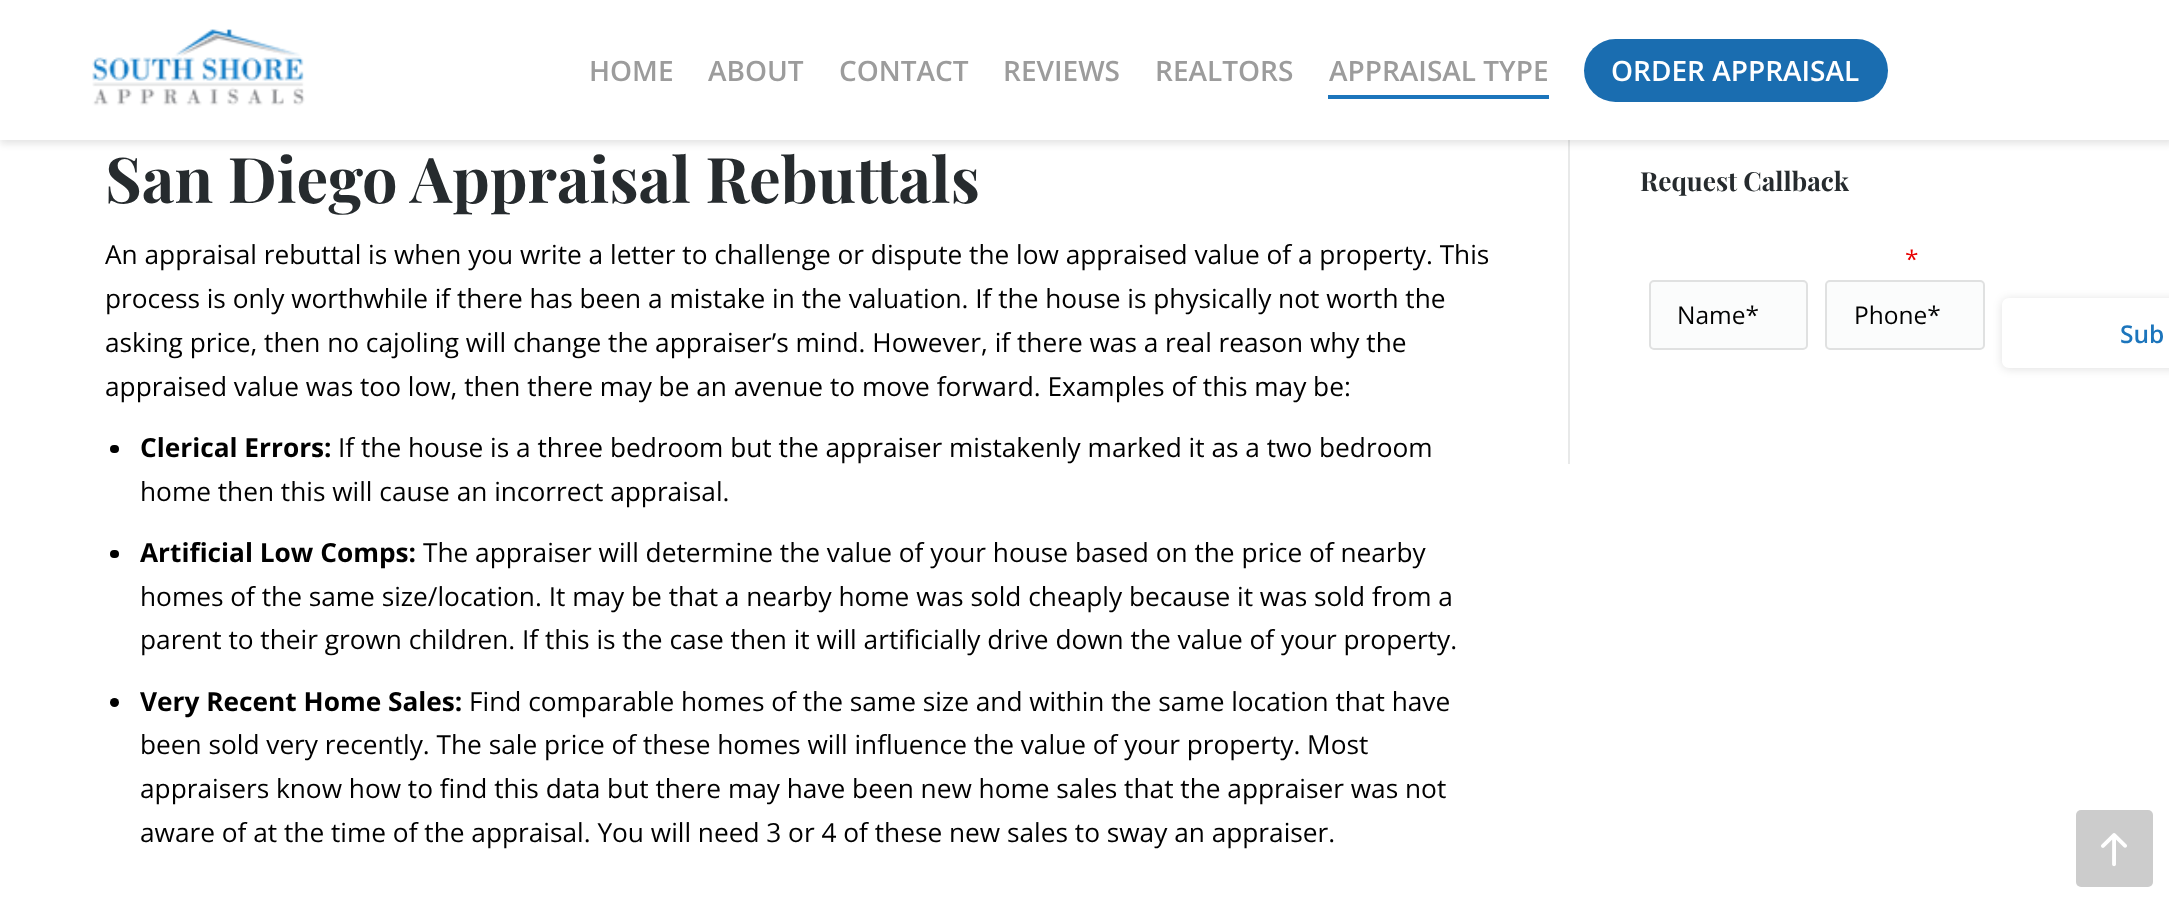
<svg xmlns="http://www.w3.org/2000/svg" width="2169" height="904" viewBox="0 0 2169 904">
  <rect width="100%" height="100%" fill="#fff"/>
  <path d="M1568 140h2v324H1568z" fill="#e8e9e9"/>
  <path d="M0 0h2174v144H0z" fill="#0000001a" filter="blur(3.5px)"/>
  <path d="M0 0h2169v140H0z" fill="#fff"/>
  <image x="92" y="29" width="213" height="77" href="img/1.png"/>
  <path d="M1328 95h221v4H1328z" fill="#1c75bc"/>
  <rect x="1584" y="39" width="304" height="63" rx="31.5" fill="#1a6db0"/>
  <rect x="110" y="445" width="9" height="8" rx="4" fill="#000"/>
  <rect x="110" y="550" width="9" height="8" rx="4" fill="#000"/>
  <circle cx="114.5" cy="702.5" r="4.5" fill="#000"/>
  <rect x="1650" y="281" width="157" height="68" rx="4" fill="#fbfcfc" stroke="#e0e1e1" stroke-width="2"/>
  <rect x="1826" y="281" width="158" height="68" rx="4" fill="#fbfcfc" stroke="#e0e1e1" stroke-width="2"/>
  <rect x="2002" y="299" width="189" height="70" rx="7" fill="#0000001f" filter="blur(5px)"/>
  <path d="M2009 298H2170V368H2009C2005 368 2002 365 2002 361V305C2002 301 2005 298 2009 298Z" fill="#fff"/>
  <rect x="2076" y="810" width="77" height="77" rx="5" fill="#ccc"/>
  <image x="2101" y="833" width="26" height="34" href="img/2.png"/>
  <g font-family="Open Sans" font-size="28" font-weight="600" fill="#9c9c9c">
    <text x="589" y="81">HOME</text>
    <text x="708" y="81">ABOUT</text>
    <text x="839" y="81">CONTACT</text>
    <text x="1003" y="81">REVIEWS</text>
    <text x="1155" y="81">REALTORS</text>
    <text x="1329" y="81">APPRAISAL TYPE</text>
  </g>
  <text x="1611" y="81" font-family="Open Sans" font-size="28" font-weight="600" fill="#fff">ORDER APPRAISAL</text>
  <text x="105" y="203" font-family="Playfair Display" font-size="63" font-weight="bold" fill="#262b2e">San Diego Appraisal Rebuttals</text>
  <g font-family="Open Sans" font-size="26.25" fill="#000">
    <text x="105" y="264">An appraisal rebuttal is when you write a letter to challenge or dispute the low appraised value of a property. This</text>
    <text x="105" y="308">process is only worthwhile if there has been a mistake in the valuation. If the house is physically not worth the</text>
    <text x="105" y="352">asking price, then no cajoling will change the appraiser’s mind. However, if there was a real reason why the</text>
    <text x="105" y="396">appraised value was too low, then there may be an avenue to move forward. Examples of this may be:</text>
  </g>
  <text x="140" y="457" font-family="Open Sans" font-size="26.25" font-weight="bold" fill="#000">Clerical Errors:</text>
  <g font-family="Open Sans" font-size="26.25" fill="#000">
    <text x="338" y="457">If the house is a three bedroom but the appraiser mistakenly marked it as a two bedroom</text>
    <text x="140" y="501">home then this will cause an incorrect appraisal.</text>
  </g>
  <text x="140" y="562" font-family="Open Sans" font-size="26.25" font-weight="bold" fill="#000">Artificial Low Comps:</text>
  <g font-family="Open Sans" font-size="26.25" fill="#000">
    <text x="423" y="562">The appraiser will determine the value of your house based on the price of nearby</text>
    <text x="140" y="606">homes of the same size/location. It may be that a nearby home was sold cheaply because it was sold from a</text>
    <text x="140" y="649">parent to their grown children. If this is the case then it will artificially drive down the value of your property.</text>
  </g>
  <text x="140" y="711" font-family="Open Sans" font-size="26.25" font-weight="bold" fill="#000">Very Recent Home Sales:</text>
  <g font-family="Open Sans" font-size="26.25" fill="#000">
    <text x="469" y="711">Find comparable homes of the same size and within the same location that have</text>
    <text x="140" y="754">been sold very recently. The sale price of these homes will influence the value of your property. Most</text>
    <text x="140" y="798">appraisers know how to find this data but there may have been new home sales that the appraiser was not</text>
    <text x="140" y="842">aware of at the time of the appraisal. You will need 3 or 4 of these new sales to sway an appraiser.</text>
  </g>
  <text x="1640" y="191" font-family="Playfair Display" font-size="26.25" font-weight="bold" fill="#262b2e">Request Callback</text>
  <text x="1905" y="268" font-family="Open Sans" font-size="24.5" fill="#e80000">*</text>
  <g font-family="Open Sans" font-size="24.5" fill="#000">
    <text x="1677" y="324">Name*</text>
    <text x="1854" y="324">Phone*</text>
  </g>
  <text x="2120" y="343" font-family="Open Sans" font-size="24.5" font-weight="600" fill="#1c75bc">Sub</text>
</svg>
